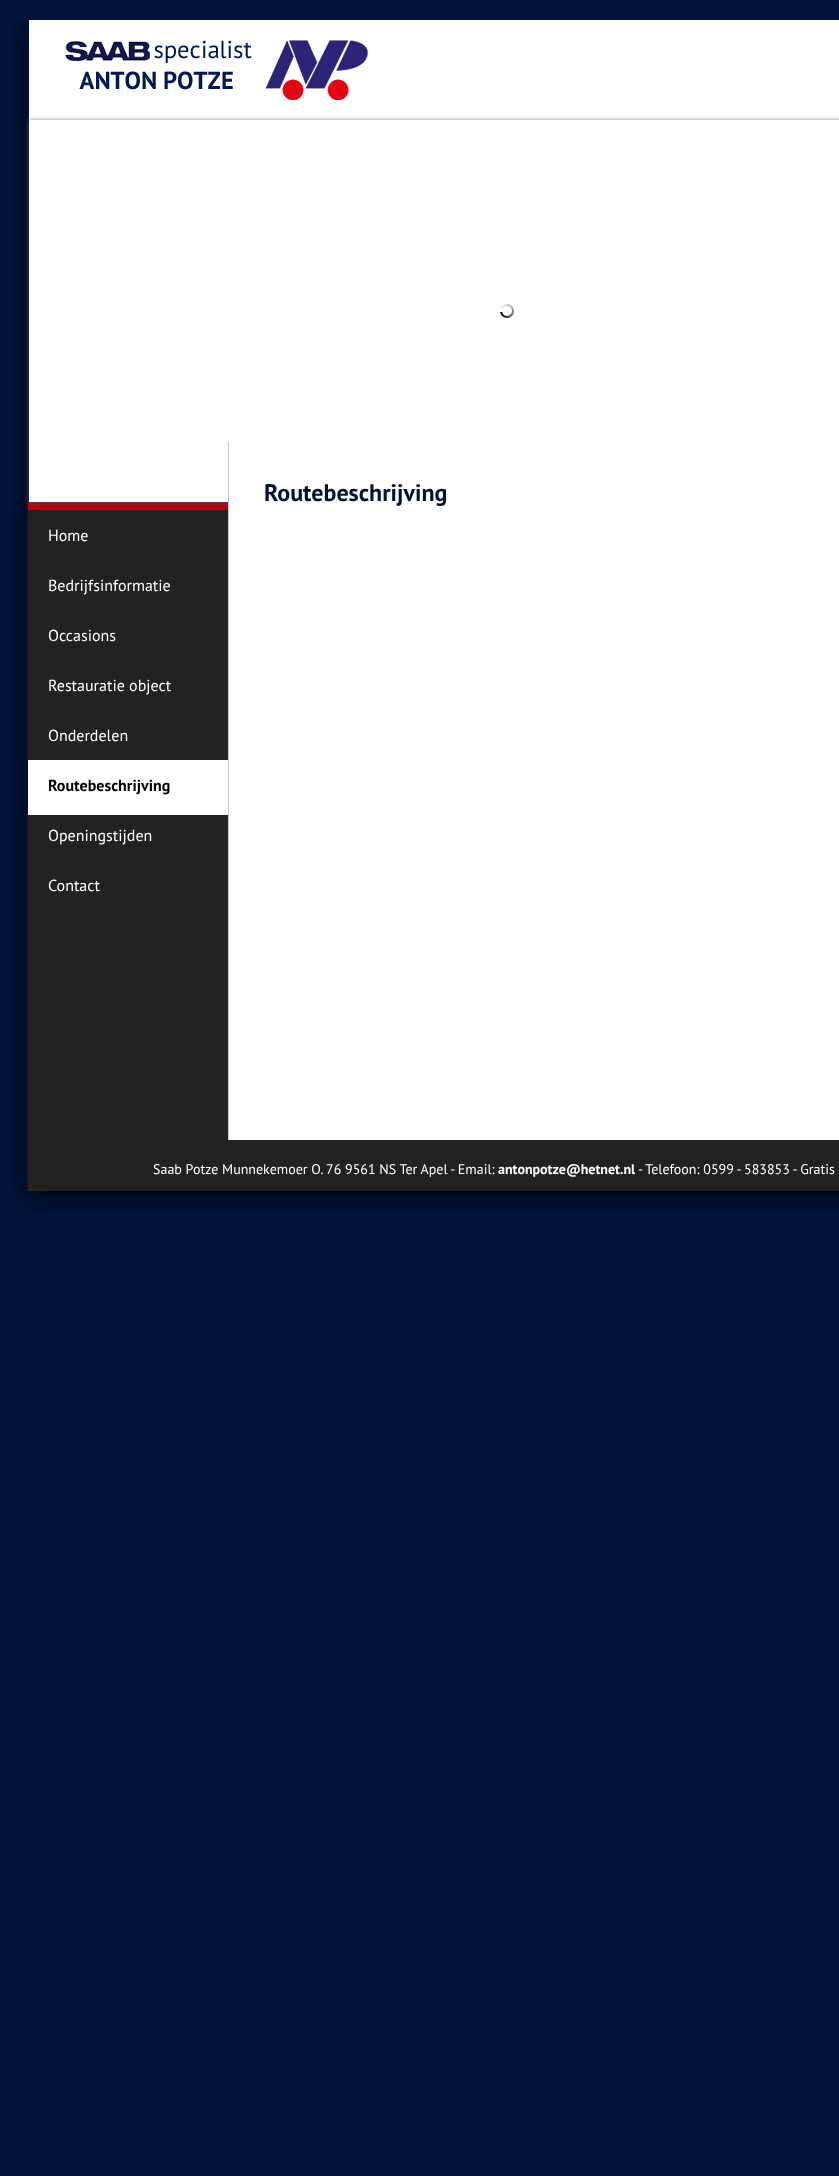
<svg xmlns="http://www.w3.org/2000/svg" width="839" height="2176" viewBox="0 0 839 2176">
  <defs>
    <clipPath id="clip1"><path d="M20 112H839V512H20ZM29 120H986V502H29Z" clip-rule="evenodd"/></clipPath>
  </defs>
  <rect width="100%" height="100%" fill="#001338"/>
  <image x="12" y="20" width="827" height="1192" href="img/1.png"/>
  <path d="M29 20h810v482H29z" fill="#fff"/>
  <image x="65" y="40" width="303" height="60" href="img/2.png"/>
  <path d="M28 510h200v630H28z" fill="#222"/>
  <path d="M28 502h200v8H28z" fill="#b9000c"/>
  <g clip-path="url(#clip1)">
    <path d="M29 121h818v382H29z" fill="#4a4a4a" filter="blur(2.5px)"/>
  </g>
  <image x="500" y="304" width="14" height="14" href="img/3.png"/>
  <path d="M229 502h610v638H229z" fill="#fff"/>
  <path d="M228 442h1v698H228z" fill="#c9c9c9"/>
  <path d="M28 760h200v55H28z" fill="#fff"/>
  <path d="M28 1140h811v51H28z" fill="#222"/>
  <text x="264" y="501" font-family="PT Sans" font-size="24" font-weight="bold" fill="#001234">Routebeschrijving</text>
  <g font-family="PT Sans" font-size="16" fill="#fff">
    <text x="48" y="541">Home</text>
    <text x="48" y="591">Bedrijfsinformatie</text>
    <text x="48" y="641">Occasions</text>
    <text x="48" y="691">Restauratie object</text>
    <text x="48" y="741">Onderdelen</text>
  </g>
  <text x="48" y="791" font-family="PT Sans" font-size="16" font-weight="bold" fill="#000">Routebeschrijving</text>
  <g font-family="PT Sans" font-size="16" fill="#fff">
    <text x="48" y="841">Openingstijden</text>
    <text x="48" y="891">Contact</text>
  </g>
  <text x="153" y="1174" font-family="PT Sans" font-size="14" fill="#fff">Saab Potze Munnekemoer O. 76 9561 NS Ter Apel - Email:</text>
  <text x="498" y="1174" font-family="PT Sans" font-size="14" font-weight="bold" fill="#fff">antonpotze@hetnet.nl</text>
  <text x="638" y="1174" font-family="PT Sans" font-size="14" fill="#fff">- Telefoon: 0599 - 583853 - Gratis</text>
</svg>
